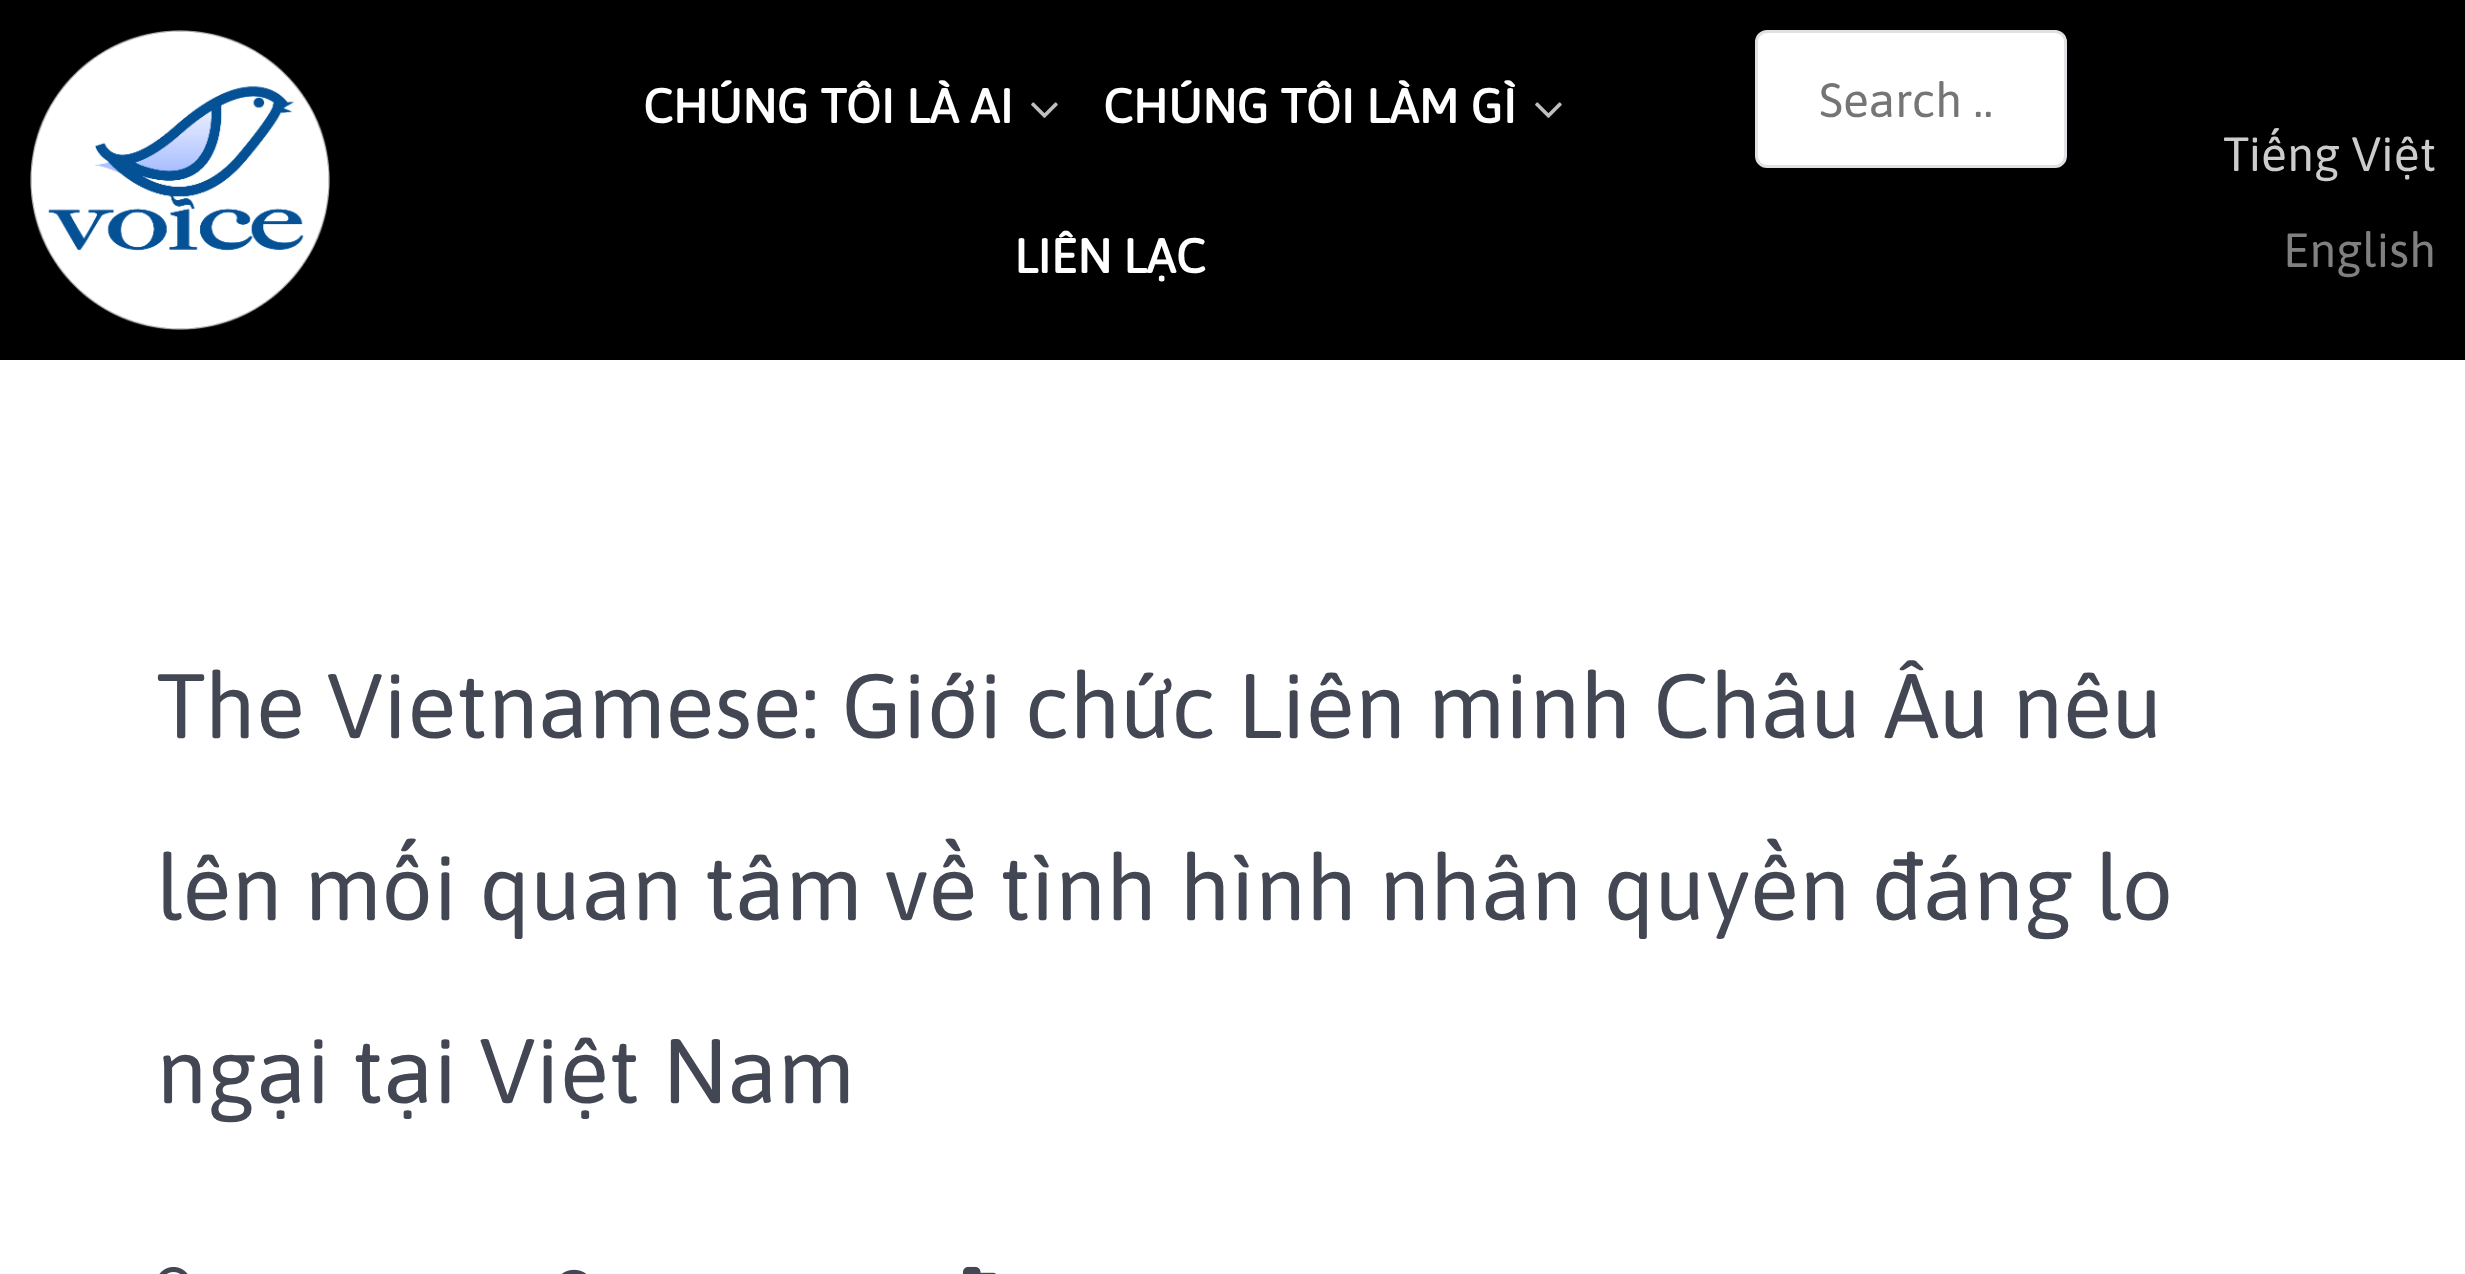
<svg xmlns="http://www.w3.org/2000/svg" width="2465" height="1274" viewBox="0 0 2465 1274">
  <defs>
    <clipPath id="clip1"><path d="M1818 72h174v54H1818z"/></clipPath>
  </defs>
  <rect width="100%" height="100%" fill="#fff"/>
  <path d="M0 0h2465v360H0z" fill="#000"/>
  <image x="30" y="30" width="300" height="300" href="img/1.png"/>
  <image x="1031" y="102" width="27" height="16" href="img/2.png"/>
  <image x="1535" y="102" width="27" height="16" href="img/2.png"/>
  <rect x="1756.5" y="31.5" width="309" height="135" rx="10.5" fill="#fff" stroke="#e0e0e5" stroke-width="3"/>
  <image x="159" y="1266" width="29" height="8" href="img/3.png"/>
  <image x="561" y="1269" width="26" height="5" href="img/4.png"/>
  <image x="963" y="1266" width="33" height="8" href="img/5.png"/>
  <g font-family="Asap" font-size="48" font-weight="bold" fill="#fff">
    <text x="643" y="123">CHÚNG TÔI LÀ AI</text>
    <text x="1103" y="123">CHÚNG TÔI LÀM GÌ</text>
    <text x="1014" y="273">LIÊN LẠC</text>
  </g>
  <g clip-path="url(#clip1)">
    <text x="1819" y="117" font-family="Asap" font-size="48" fill="#757575">Search …</text>
  </g>
  <text x="2223" y="171" font-family="Asap" font-size="48" fill="#ccc">Tiếng Việt</text>
  <text x="2283" y="267" font-family="Asap" font-size="48" fill="#808080">English</text>
  <g font-family="Asap" font-size="91.2" fill="#424753">
    <text x="156" y="738">The Vietnamese: Giới chức Liên minh Châu Âu nêu</text>
    <text x="156" y="920">lên mối quan tâm về tình hình nhân quyền đáng lo</text>
    <text x="156" y="1103">ngại tại Việt Nam</text>
  </g>
</svg>
